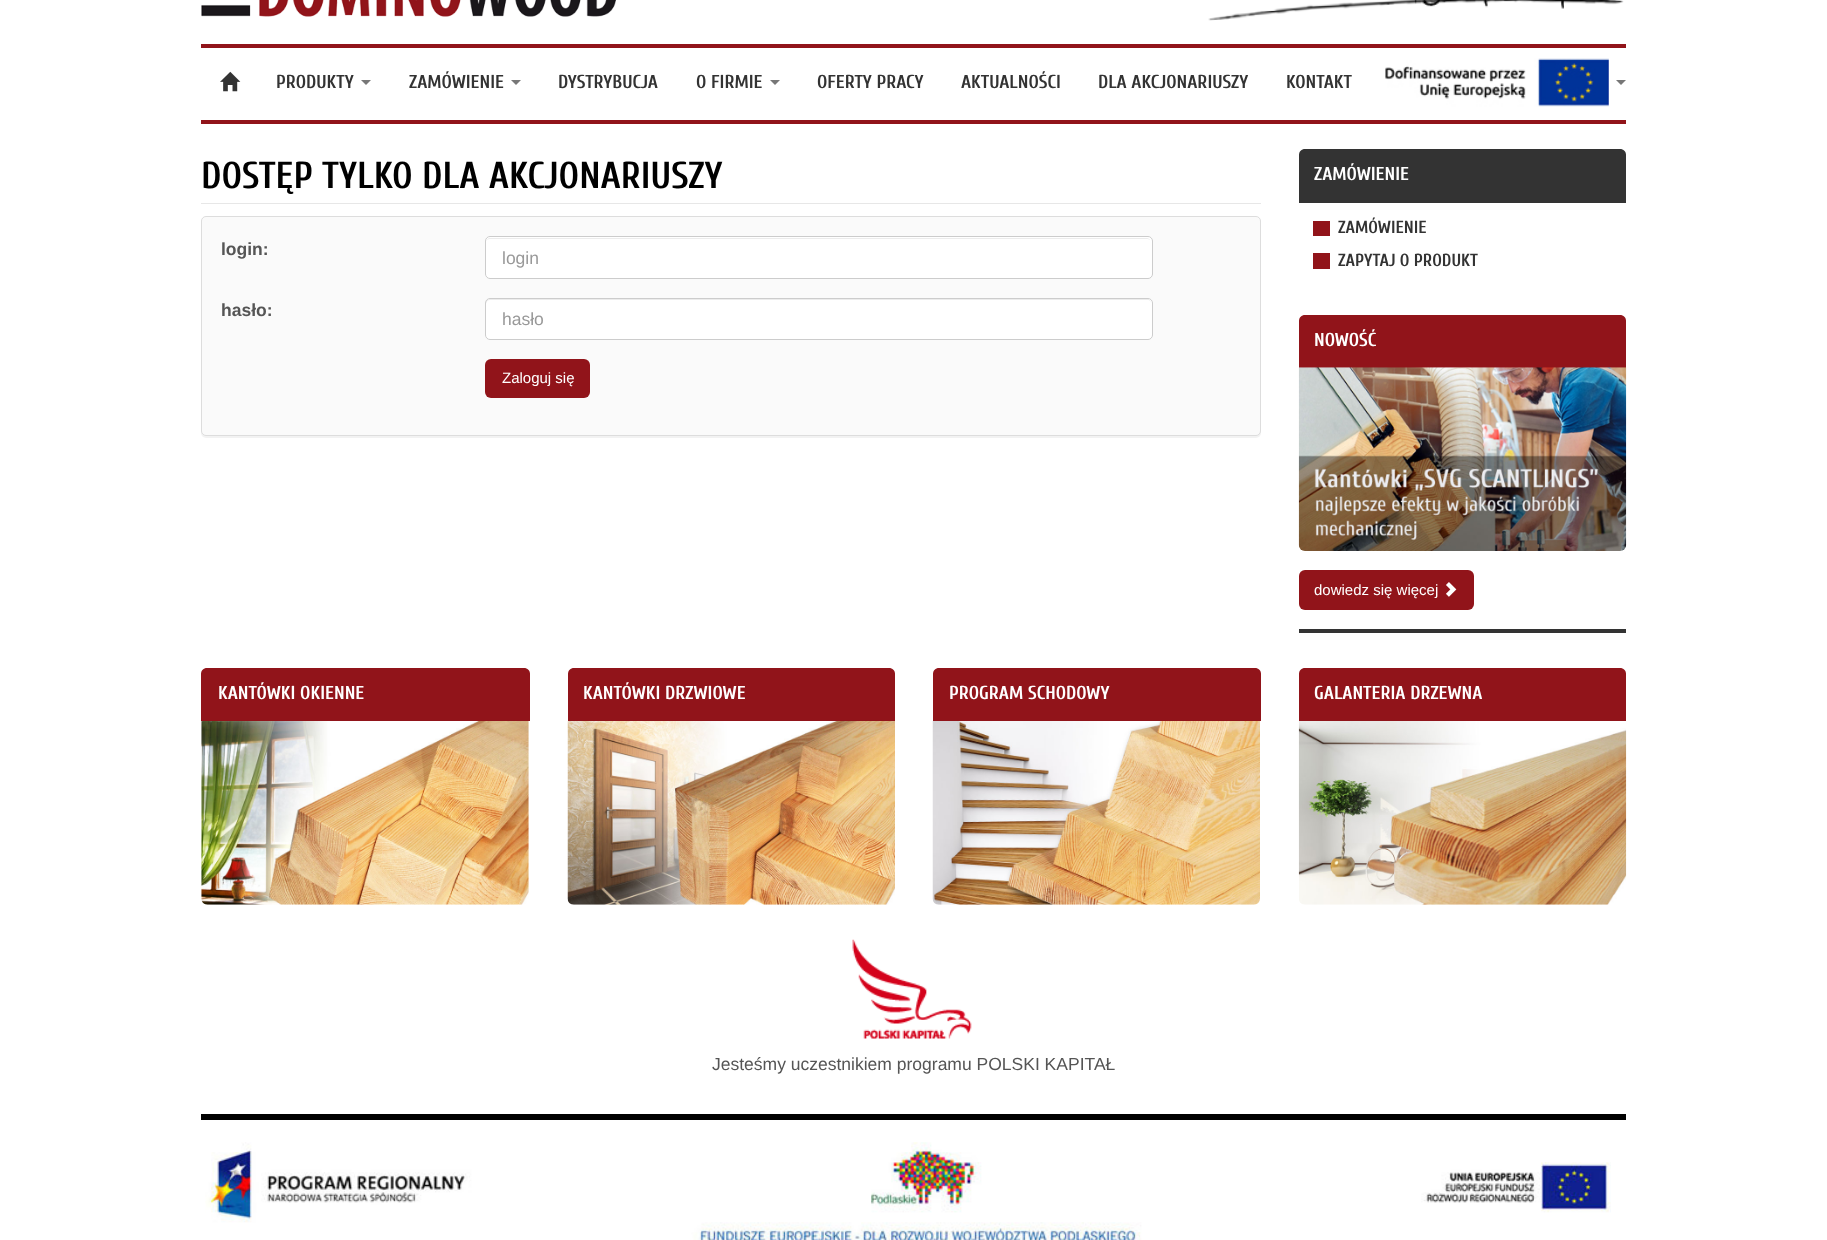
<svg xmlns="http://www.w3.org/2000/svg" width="1827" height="1240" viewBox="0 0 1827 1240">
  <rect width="100%" height="100%" fill="#fff"/>
  <image x="201" y="0" width="415" height="17" href="img/1.png"/>
  <image x="1208" y="0" width="416" height="21" href="img/2.png"/>
  <path d="M201 44h1425v4H201z" fill="#91141a"/>
  <path d="M201 120h1425v4H201z" fill="#91141a"/>
  <image x="220" y="71" width="21" height="21" href="img/3.png"/>
  <path d="M361 80H371L366 85Z" fill="#777"/>
  <path d="M511 80H521L516 85Z" fill="#777"/>
  <path d="M770 80H780L775 85Z" fill="#777"/>
  <image x="1385" y="58" width="224" height="49" href="img/4.png"/>
  <path d="M1616 80H1626L1621 85Z" fill="#777"/>
  <path d="M201 203h1060v1H201z" fill="#e7e7e7"/>
  <rect x="201" y="218" width="1060" height="220" rx="5" fill="#0000000d" filter="blur(0.5px)"/>
  <rect x="201.5" y="216.5" width="1059" height="219" rx="4.5" fill="#fafafa" stroke="#ddd"/>
  <rect x="485" y="236" width="668" height="43" rx="5" fill="#fff"/>
  <path d="M490 239H1148L1150 240C1150 239 1148 238 1147 238H490C488 238 486 240 486 242C486 240 488 239 490 239Z" fill="#ececec"/>
  <rect x="485.5" y="236.5" width="667" height="42" rx="4.5" fill="none" stroke="#ccc"/>
  <rect x="485" y="298" width="668" height="42" rx="5" fill="#fff"/>
  <path d="M490 300H1148C1150 300 1151 302 1151 304C1151 301 1150 299 1147 299H490L487 300L486 301V304C486 302 488 300 490 300Z" fill="#ececec"/>
  <rect x="485.5" y="298.5" width="667" height="41" rx="4.5" fill="none" stroke="#ccc"/>
  <rect x="485" y="359" width="105" height="39" rx="6" fill="#91141a"/>
  <path d="M1305 149H1620C1623.5 149 1626 151.5 1626 155V203H1299V155C1299 151.5 1301.5 149 1305 149Z" fill="#333"/>
  <path d="M1313 221h17v15H1313z" fill="#91141a"/>
  <path d="M1313 253h17v16H1313z" fill="#91141a"/>
  <path d="M1299 629h327v4H1299z" fill="#333"/>
  <path d="M1305 315H1620C1623.5 315 1626 317.5 1626 321V368H1299V321C1299 317.5 1301.5 315 1305 315Z" fill="#91141a"/>
  <image x="1298" y="367" width="329" height="184" href="img/5.png"/>
  <rect x="1299" y="570" width="175" height="40" rx="6" fill="#91141a"/>
  <image x="1446" y="582" width="11" height="15" href="img/6.png"/>
  <path d="M207 668H524C527.5 668 530 670.5 530 674V721H201V674C201 670.5 203.5 668 207 668Z" fill="#91141a"/>
  <image x="201" y="721" width="328" height="184" href="img/7.png"/>
  <path d="M574 668H889C892.5 668 895 670.5 895 674V721H568V674C568 670.5 570.5 668 574 668Z" fill="#91141a"/>
  <image x="567" y="721" width="328" height="184" href="img/8.png"/>
  <path d="M939 668H1255C1258.5 668 1261 670.5 1261 674V721H933V674C933 670.5 935.5 668 939 668Z" fill="#91141a"/>
  <image x="932" y="721" width="328" height="184" href="img/9.png"/>
  <path d="M1305 668H1620C1623.5 668 1626 670.5 1626 674V721H1299V674C1299 670.5 1301.5 668 1305 668Z" fill="#91141a"/>
  <image x="1298" y="721" width="329" height="184" href="img/10.png"/>
  <image x="852" y="939" width="120" height="100" href="img/11.png"/>
  <path d="M201 1114h1425v6H201z" fill="#000"/>
  <image x="205" y="1142" width="1406" height="98" href="img/12.png"/>
  <g font-family="Cuprum" font-size="18.75" font-weight="bold" fill="#333">
    <text x="276" y="88">PRODUKTY</text>
    <text x="409" y="88">ZAMÓWIENIE</text>
    <text x="558" y="88">DYSTRYBUCJA</text>
    <text x="696" y="88">O FIRMIE</text>
    <text x="817" y="88">OFERTY PRACY</text>
    <text x="961" y="88">AKTUALNOŚCI</text>
    <text x="1098" y="88">DLA AKCJONARIUSZY</text>
    <text x="1286" y="88">KONTAKT</text>
  </g>
  <text x="201" y="188" font-family="Cuprum" font-size="37.5" font-weight="bold" fill="#000">DOSTĘP TYLKO DLA AKCJONARIUSZY</text>
  <text x="221" y="255" font-family="Liberation Sans" font-size="17.5" font-weight="bold" fill="#555">login:</text>
  <text x="502" y="264" font-family="Liberation Sans" font-size="17.5" fill="#999">login</text>
  <text x="221" y="316" font-family="Liberation Sans" font-size="17.5" font-weight="bold" fill="#555">hasło:</text>
  <text x="502" y="325" font-family="Liberation Sans" font-size="17.5" fill="#999">hasło</text>
  <text x="502" y="383" font-family="Liberation Sans" font-size="15" fill="#fff">Zaloguj się</text>
  <text x="1314" y="180" font-family="Cuprum" font-size="18.75" font-weight="bold" fill="#fff">ZAMÓWIENIE</text>
  <g font-family="Cuprum" font-size="17.5" font-weight="bold" fill="#333">
    <text x="1338" y="233">ZAMÓWIENIE</text>
    <text x="1338" y="266">ZAPYTAJ O PRODUKT</text>
  </g>
  <text x="1314" y="346" font-family="Cuprum" font-size="18.75" font-weight="bold" fill="#fff">NOWOŚĆ</text>
  <text x="1314" y="595" font-family="Liberation Sans" font-size="15" fill="#fff">dowiedz się więcej</text>
  <g font-family="Cuprum" font-size="18.75" font-weight="bold" fill="#fff">
    <text x="218" y="699">KANTÓWKI OKIENNE</text>
    <text x="583" y="699">KANTÓWKI DRZWIOWE</text>
    <text x="949" y="699">PROGRAM SCHODOWY</text>
    <text x="1314" y="699">GALANTERIA DRZEWNA</text>
  </g>
  <text x="712" y="1070" font-family="Liberation Sans" font-size="17.5" fill="#555">Jesteśmy uczestnikiem programu POLSKI KAPITAŁ</text>
</svg>
